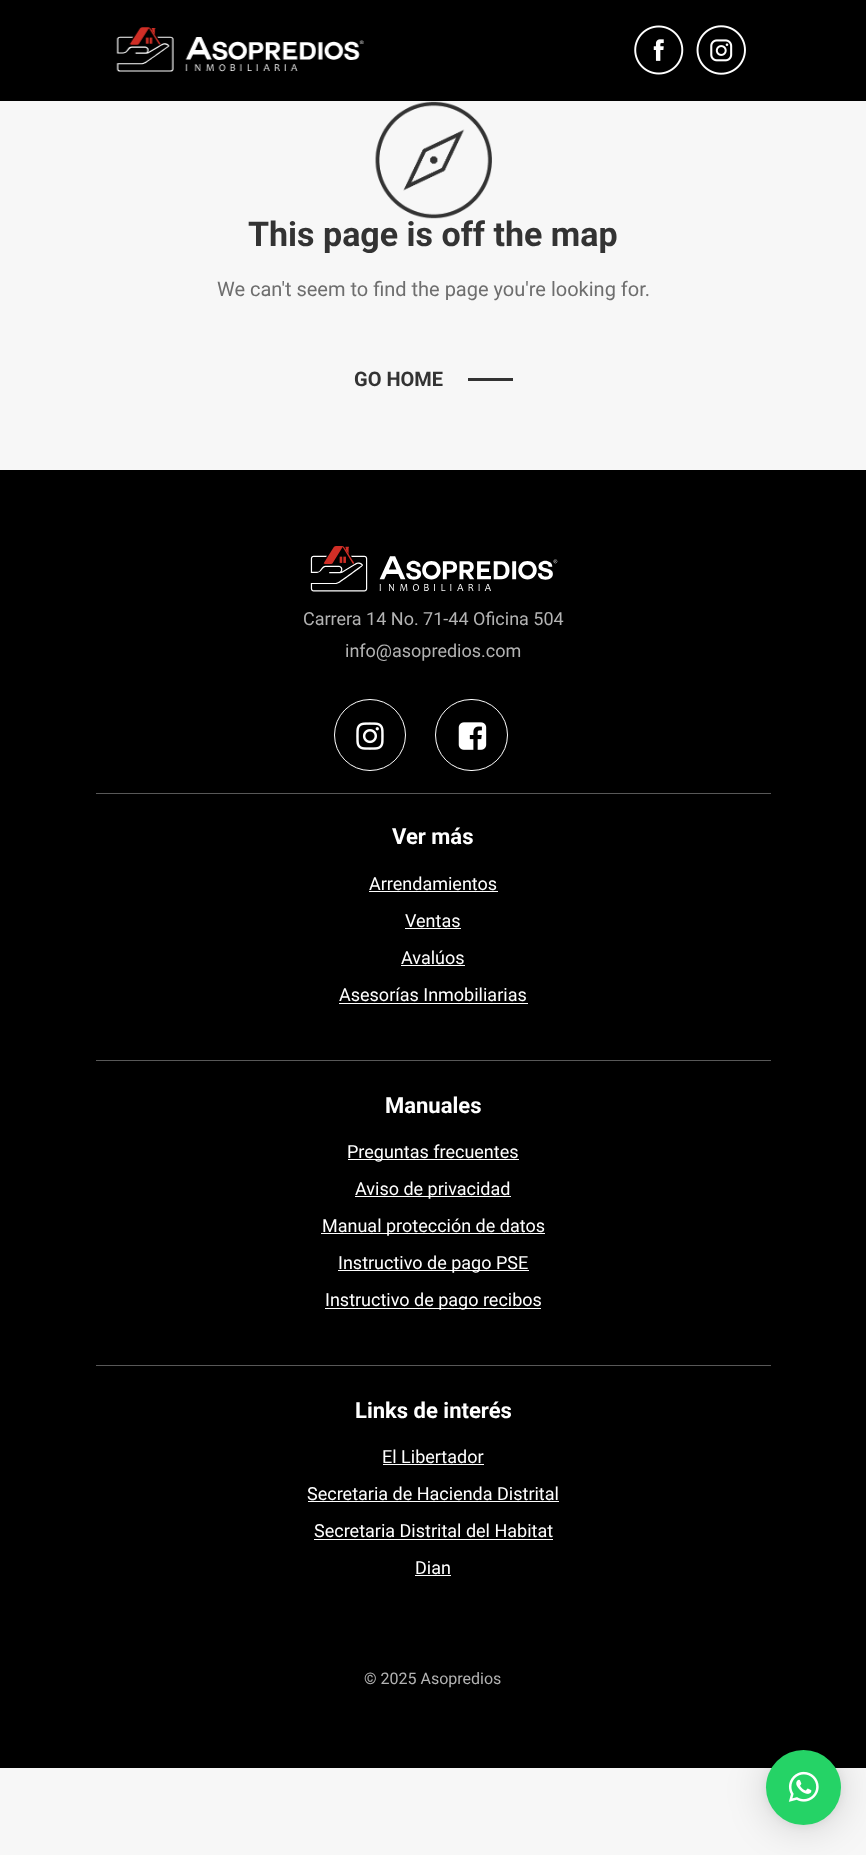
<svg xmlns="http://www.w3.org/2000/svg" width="866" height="1855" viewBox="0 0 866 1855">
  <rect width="100%" height="100%" fill="#f7f7f7"/>
  <path d="M0 0h866v101H0z" fill="#000"/>
  <image x="116" y="27" width="248" height="45" href="img/1.png"/>
  <image x="634" y="25" width="50" height="50" href="img/2.png"/>
  <image x="696" y="25" width="50" height="50" href="img/3.png"/>
  <image x="375" y="101" width="117" height="118" href="img/4.png"/>
  <path d="M468 378h45v3H468z" fill="#333"/>
  <path d="M0 470h866v1298H0z" fill="#000"/>
  <image x="310" y="546" width="248" height="46" href="img/5.png"/>
  <circle cx="370" cy="735" r="35.5" fill="none" stroke="#fff"/>
  <image x="356" y="722" width="28" height="28" href="img/6.png"/>
  <rect x="435.5" y="699.5" width="72" height="71" rx="35.5" fill="none" stroke="#fff"/>
  <image x="458" y="722" width="29" height="28" href="img/7.png"/>
  <path d="M96 793h675v1H96z" fill="#585858"/>
  <path d="M369 891h129v1H369z" fill="#fff"/>
  <path d="M405 928h56v1H405z" fill="#fff"/>
  <path d="M401 965h64v1H401z" fill="#fff"/>
  <path d="M339 1003h189v1H339z" fill="#fff"/>
  <path d="M96 1060h675v1H96z" fill="#585858"/>
  <path d="M348 1159h171v1H348z" fill="#fff"/>
  <path d="M355 1196h156v1H355z" fill="#fff"/>
  <path d="M321 1233h224v1H321z" fill="#fff"/>
  <path d="M338 1270h191v1H338z" fill="#fff"/>
  <path d="M325 1308h216v1H325z" fill="#fff"/>
  <path d="M96 1365h675v1H96z" fill="#585858"/>
  <path d="M383 1464h101v1H383z" fill="#fff"/>
  <path d="M308 1501h251v1H308z" fill="#fff"/>
  <path d="M314 1539h239v1H314z" fill="#fff"/>
  <path d="M415 1575h36v1H415z" fill="#fff"/>
  <rect x="766" y="1753" width="75" height="75" rx="37.5" fill="#00000029" filter="blur(20px)"/>
  <rect x="766" y="1751" width="75" height="75" rx="37.5" fill="#0000000f" filter="blur(4px)"/>
  <circle cx="803.5" cy="1787.5" r="37.5" fill="#25d366"/>
  <image x="788" y="1771" width="31" height="31" href="img/8.png"/>
  <text x="248" y="246" font-family="Roboto" font-size="34" font-weight="bold" fill="#333">This page is off the map</text>
  <text x="217" y="296" font-family="Roboto" font-size="20" fill="#6e6e6e">We can't seem to find the page you're looking for.</text>
  <text x="354" y="386" font-family="Roboto" font-size="20" font-weight="bold" fill="#333">GO HOME</text>
  <g font-family="Roboto" font-size="18" fill="#b3b3b3">
    <text x="303" y="625">Carrera 14 No. 71-44 Oficina 504</text>
    <text x="345" y="657">info@asopredios.com</text>
  </g>
  <text x="392" y="844" font-family="Roboto" font-size="22" font-weight="bold" fill="#fff">Ver más</text>
  <g font-family="Roboto" font-size="18" fill="#fff">
    <text x="369" y="890">Arrendamientos</text>
    <text x="405" y="927">Ventas</text>
    <text x="401" y="964">Avalúos</text>
    <text x="339" y="1001">Asesorías Inmobiliarias</text>
  </g>
  <text x="385" y="1113" font-family="Roboto" font-size="22" font-weight="bold" fill="#fff">Manuales</text>
  <g font-family="Roboto" font-size="18" fill="#fff">
    <text x="347" y="1158">Preguntas frecuentes</text>
    <text x="355" y="1195">Aviso de privacidad</text>
    <text x="322" y="1232">Manual protección de datos</text>
    <text x="338" y="1269">Instructivo de pago PSE</text>
    <text x="325" y="1306">Instructivo de pago recibos</text>
  </g>
  <text x="355" y="1418" font-family="Roboto" font-size="22" font-weight="bold" fill="#fff">Links de interés</text>
  <g font-family="Roboto" font-size="18" fill="#fff">
    <text x="382" y="1463">El Libertador</text>
    <text x="307" y="1500">Secretaria de Hacienda Distrital</text>
    <text x="314" y="1537">Secretaria Distrital del Habitat</text>
    <text x="415" y="1574">Dian</text>
  </g>
  <text x="364" y="1684" font-family="Roboto" font-size="16" fill="#b3b3b3">© 2025 Asopredios</text>
</svg>
